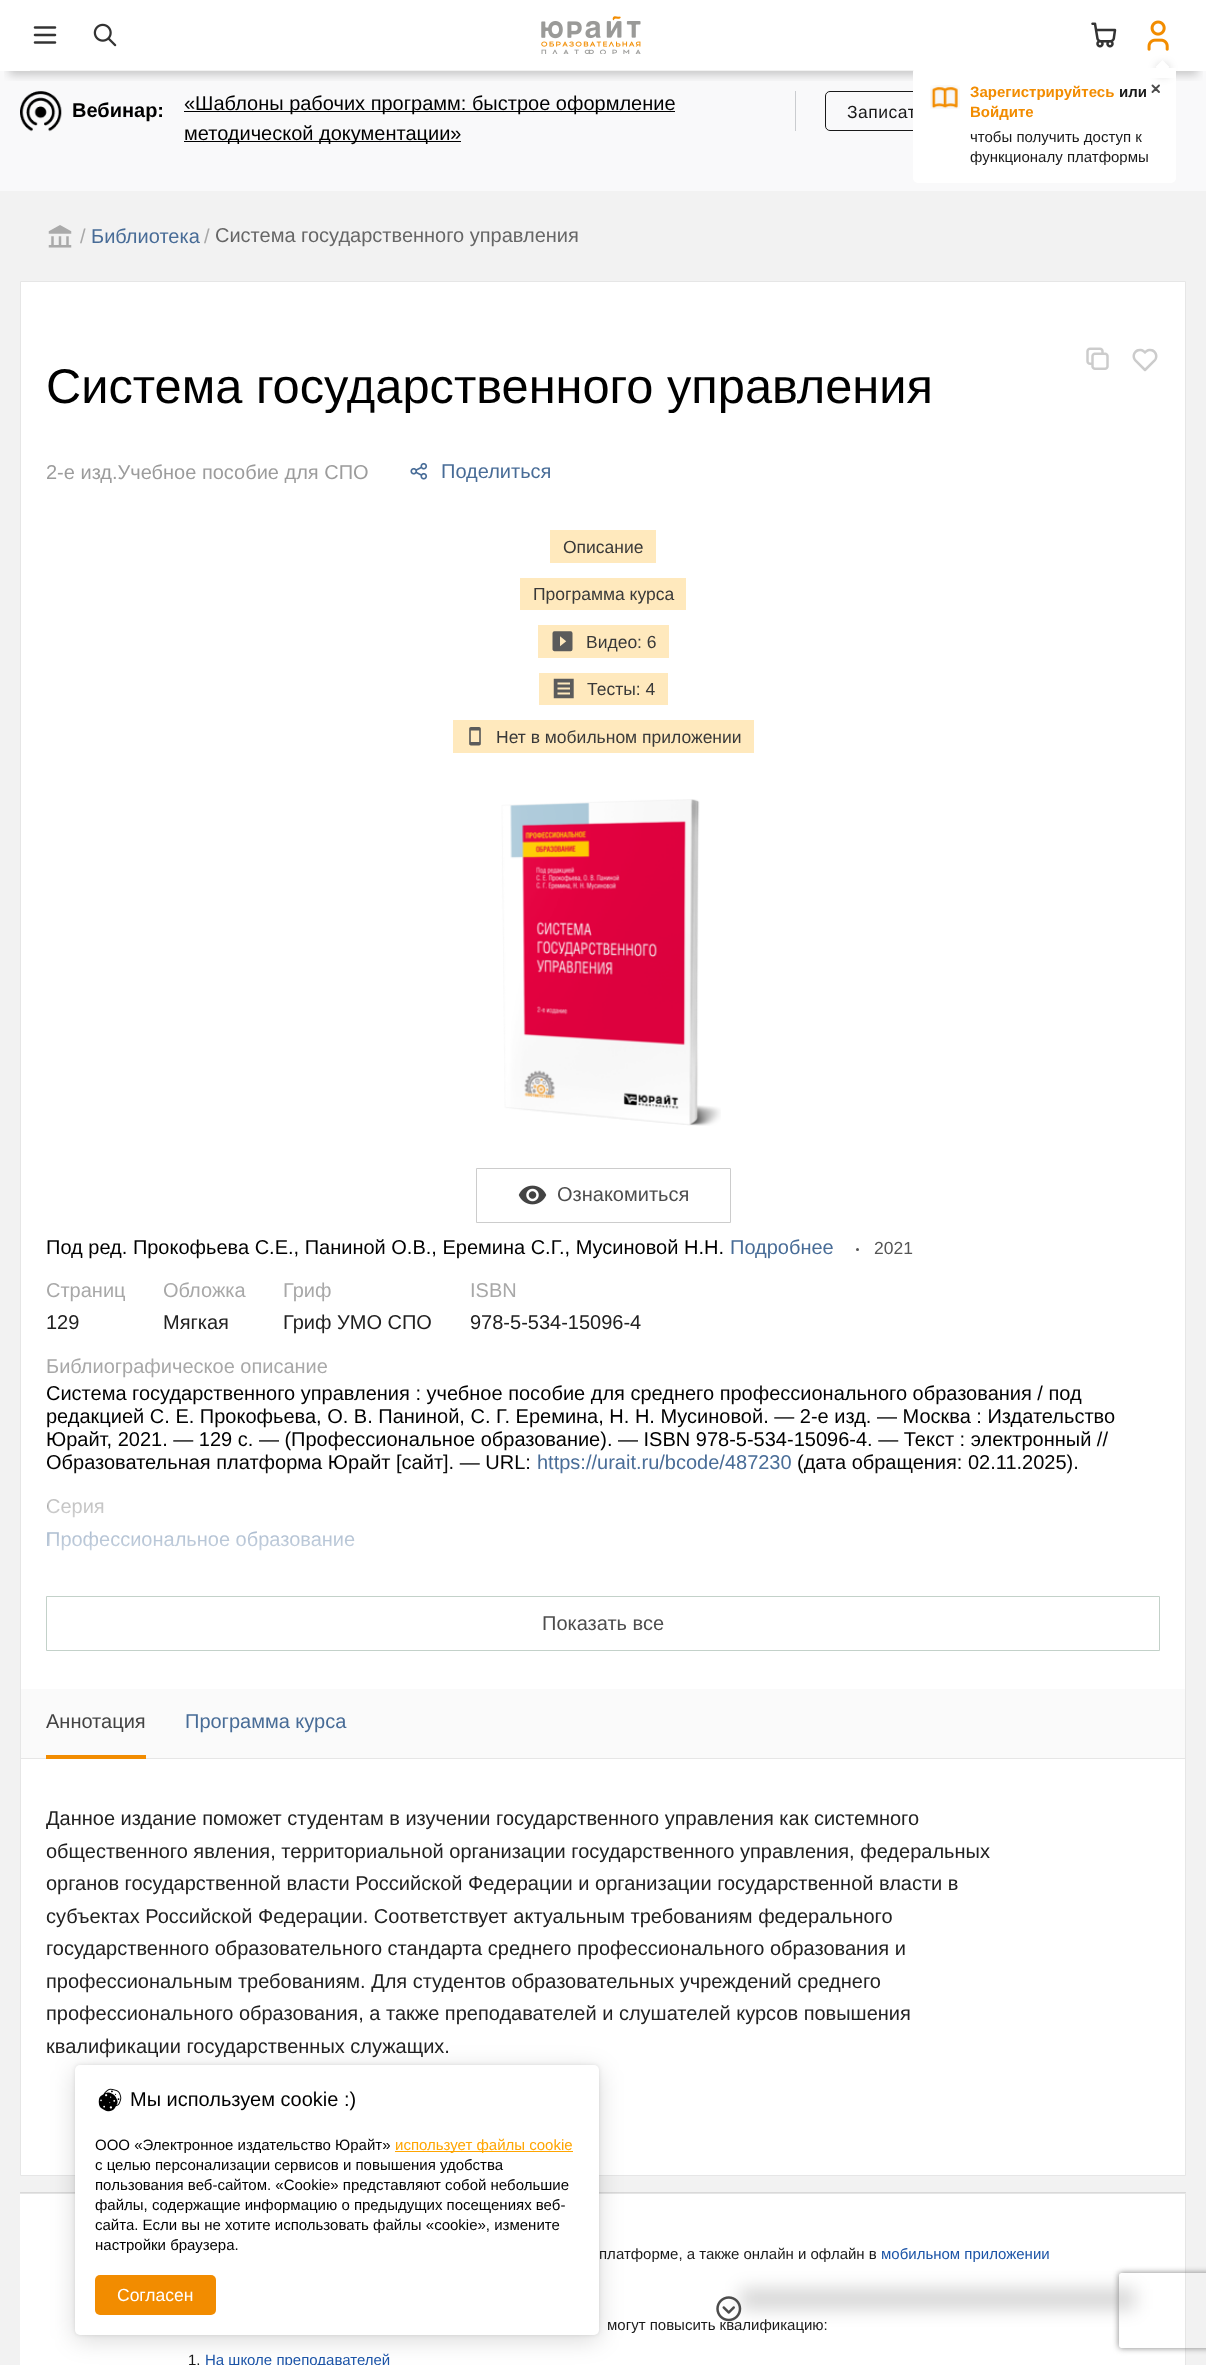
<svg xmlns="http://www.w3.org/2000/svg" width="1206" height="2365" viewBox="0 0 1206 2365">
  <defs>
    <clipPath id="clip1"><path d="M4 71h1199v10H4z"/></clipPath>
    <clipPath id="clip2"><path d="M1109 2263H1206V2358H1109ZM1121.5 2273H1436.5C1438 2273 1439 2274 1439 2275.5V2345.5C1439 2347 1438 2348 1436.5 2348H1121.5C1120 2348 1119 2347 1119 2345.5V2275.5C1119 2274 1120 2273 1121.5 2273Z" clip-rule="evenodd"/></clipPath>
    <linearGradient id="g1" gradientUnits="userSpaceOnUse" x1="603" y1="1463" x2="603" y2="1588"><stop offset="0" stop-color="#fff" stop-opacity="0"/><stop offset="1" stop-color="#fff"/></linearGradient>
  </defs>
  <rect width="100%" height="100%" fill="#fff"/>
  <path d="M0 71h1206v120H0z" fill="#f9f9fa"/>
  <image x="20" y="91" width="42" height="41" href="img/1.png"/>
  <path d="M184 111h491v1H184z" fill="#000"/>
  <path d="M184 141h277v1H184z" fill="#000"/>
  <path d="M795 91h1v40H795z" fill="#cacccf"/>
  <rect x="825.5" y="91.5" width="243" height="39" rx="4.5" fill="none" stroke="#191919"/>
  <g clip-path="url(#clip1)">
    <path d="M9 21h1189v54H9z" fill="#00000033" filter="blur(5px)"/>
  </g>
  <path d="M30 70h884v1H30z" fill="#f2f2f2"/>
  <image x="33" y="26" width="24" height="18" href="img/2.png"/>
  <image x="93" y="23" width="24" height="24" href="img/3.png"/>
  <image x="541" y="16" width="100" height="38" href="img/4.png"/>
  <image x="1091" y="22" width="26" height="26" href="img/5.png"/>
  <image x="1147" y="20" width="22" height="31" href="img/6.png"/>
  <path d="M0 191h1206v2174H0z" fill="#f2f2f2"/>
  <image x="48" y="225" width="24" height="23" href="img/8.png"/>
  <path d="M20.5 281.5h1165v1894H20.5z" fill="#fff" stroke="#e6e6e6"/>
  <image x="1086" y="347" width="23" height="23" href="img/9.png"/>
  <image x="1132" y="348" width="26" height="24" href="img/10.png"/>
  <image x="410" y="462" width="18" height="18" href="img/11.png"/>
  <path d="M550 530h106v33H550z" fill="#ffe9bd"/>
  <path d="M520 578h166v32H520z" fill="#ffe9bd"/>
  <path d="M538 625h131v33H538z" fill="#ffe9bd"/>
  <image x="552" y="631" width="21" height="21" href="img/12.png"/>
  <path d="M539 673h129v32H539z" fill="#ffe9bd"/>
  <image x="553" y="678" width="21" height="21" href="img/13.png"/>
  <path d="M453 720h301v33H453z" fill="#ffe9bd"/>
  <image x="469" y="727" width="12" height="19" href="img/14.png"/>
  <image x="501" y="799" width="220" height="327" href="img/15.png"/>
  <path d="M476.5 1168.5h254v54H476.5z" fill="none" stroke="#ccc"/>
  <image x="518" y="1185" width="29" height="20" href="img/16.png"/>
  <circle cx="857.5" cy="1249.5" r="1.5" fill="#555"/>
  <path d="M46.5 1596.5h1113v54H46.5z" fill="none" stroke="#c3d1c9"/>
  <path d="M21 1689h1164v69H21z" fill="#fafafa"/>
  <path d="M21 1758h1164v1H21z" fill="#e6e6e6"/>
  <path d="M46 1755h100v4H46z" fill="#f28c00"/>
  <path d="M20 2193h1166v172H20z" fill="#fff"/>
  <path d="M20 2192H1186L1185 2194H20Z" fill="#0000001a"/>
  <path d="M1186 2192V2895L1185 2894V2194Z" fill="#0000001a"/>
  <rect x="75" y="2065" width="524" height="270" rx="5" fill="#0000001a" filter="blur(2px)"/>
  <rect x="75" y="2070" width="524" height="270" rx="5" fill="#00000026" filter="blur(12.5px)"/>
  <rect x="75" y="2065" width="524" height="270" rx="5" fill="#fff"/>
  <image x="98" y="2088" width="24" height="24" href="img/17.png"/>
  <path d="M395 2151h178v1H395z" fill="#ffa500"/>
  <rect x="95" y="2275" width="121" height="40" rx="5" fill="#f28c00"/>
  <path d="M740 2289h395v20H740z" fill="#0000002b" filter="blur(9px)"/>
  <g clip-path="url(#clip2)">
    <rect x="1119" y="2273" width="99" height="75" rx="2.5" fill="#808080" filter="blur(3px)"/>
  </g>
  <text x="72" y="117" font-family="Liberation Sans" font-size="20" font-weight="bold" fill="#000">Вебинар:</text>
  <g font-family="Liberation Sans" font-size="20" fill="#000">
    <text x="184" y="110">«Шаблоны рабочих программ: быстрое оформление</text>
    <text x="184" y="140">методической документации»</text>
  </g>
  <text x="847" y="118" font-family="Liberation Sans" font-size="17.5" letter-spacing="0.5" fill="#191919">Записат</text>
  <rect x="913" y="68" width="263" height="115" rx="5" fill="#fff"/>
  <path d="M1158 65h10v10H1158z" fill="#00000040" filter="blur(5px)"/>
  <path d="M1162.5 60L1169.5 67L1162.5 74L1155.5 67Z" fill="#fff"/>
  <path d="M918 68H1176V78H918C915 78 913 76 913 73C913 70 915 68 918 68Z" fill="#fff"/>
  <image x="930" y="85" width="30" height="24" href="img/7.png"/>
  <text x="970" y="97" font-family="Liberation Sans" font-size="15" font-weight="bold" fill="#f28c00">Зарегистрируйтесь</text>
  <text x="1119" y="97" font-family="Liberation Sans" font-size="15" font-weight="bold" fill="#191919">или</text>
  <text x="970" y="117" font-family="Liberation Sans" font-size="15" font-weight="bold" fill="#f28c00">Войдите</text>
  <g font-family="Liberation Sans" font-size="15" fill="#191919">
    <text x="970" y="142">чтобы получить доступ к</text>
    <text x="970" y="162">функционалу платформы</text>
  </g>
  <path d="M1152.5 85.5L1159 92M1159 85.5L1152.5 92" fill="none" stroke="#4c4c4c" stroke-width="1.9" stroke-linecap="round" stroke-linejoin="round"/>
  <text x="80" y="243" font-family="Liberation Sans" font-size="20" fill="#a8a8a8">/</text>
  <text x="91" y="243" font-family="Liberation Sans" font-size="20" fill="#486c97">Библиотека</text>
  <text x="204" y="243" font-family="Liberation Sans" font-size="20" fill="#a8a8a8">/</text>
  <text x="215" y="242" font-family="Liberation Sans" font-size="20" fill="#666">Система государственного управления</text>
  <text x="46" y="403" font-family="Liberation Sans" font-size="48.75" fill="#000">Система государственного управления</text>
  <text x="46" y="479" font-family="Liberation Sans" font-size="20" fill="#9c9c9c">2-е изд.Учебное пособие для СПО</text>
  <text x="441" y="478" font-family="Liberation Sans" font-size="20" fill="#486c97">Поделиться</text>
  <g font-family="Liberation Sans" font-size="17.5" fill="#393939">
    <text x="563" y="553">Описание</text>
    <text x="533" y="600">Программа курса</text>
    <text x="586" y="648">Видео: 6</text>
    <text x="587" y="695">Тесты: 4</text>
    <text x="496" y="743">Нет в мобильном приложении</text>
  </g>
  <text x="557" y="1201" font-family="Liberation Sans" font-size="20" fill="#4d4d4d">Ознакомиться</text>
  <text x="46" y="1254" font-family="Liberation Sans" font-size="20" fill="#000">Под ред. Прокофьева С.Е., Паниной О.В., Еремина С.Г., Мусиновой Н.Н.</text>
  <text x="730" y="1254" font-family="Liberation Sans" font-size="20" fill="#486c97">Подробнее</text>
  <text x="874" y="1254" font-family="Liberation Sans" font-size="17.5" fill="#555">2021</text>
  <text x="46" y="1297" font-family="Liberation Sans" font-size="20" fill="#a8a8a8">Страниц</text>
  <text x="46" y="1329" font-family="Liberation Sans" font-size="20" fill="#212121">129</text>
  <text x="163" y="1297" font-family="Liberation Sans" font-size="20" fill="#a8a8a8">Обложка</text>
  <text x="163" y="1329" font-family="Liberation Sans" font-size="20" fill="#212121">Мягкая</text>
  <text x="283" y="1297" font-family="Liberation Sans" font-size="20" fill="#a8a8a8">Гриф</text>
  <text x="283" y="1329" font-family="Liberation Sans" font-size="20" fill="#212121">Гриф УМО СПО</text>
  <text x="470" y="1297" font-family="Liberation Sans" font-size="20" fill="#a8a8a8">ISBN</text>
  <text x="470" y="1329" font-family="Liberation Sans" font-size="20" fill="#212121">978-5-534-15096-4</text>
  <text x="46" y="1373" font-family="Liberation Sans" font-size="20" fill="#a8a8a8">Библиографическое описание</text>
  <g font-family="Liberation Sans" font-size="20" fill="#000">
    <text x="46" y="1400">Система государственного управления : учебное пособие для среднего профессионального образования / под</text>
    <text x="46" y="1423">редакцией С. Е. Прокофьева, О. В. Паниной, С. Г. Еремина, Н. Н. Мусиновой. — 2-е изд. — Москва : Издательство</text>
    <text x="46" y="1446">Юрайт, 2021. — 129 с. — (Профессиональное образование). — ISBN 978-5-534-15096-4. — Текст : электронный //</text>
    <text x="46" y="1469">Образовательная платформа Юрайт [сайт]. — URL:</text>
  </g>
  <text x="537" y="1469" font-family="Liberation Sans" font-size="20" fill="#486c97">https://urait.ru/bcode/487230</text>
  <text x="797" y="1469" font-family="Liberation Sans" font-size="20" fill="#000">(дата обращения: 02.11.2025).</text>
  <text x="46" y="1513" font-family="Liberation Sans" font-size="20" fill="#a8a8a8">Серия</text>
  <text x="46" y="1546" font-family="Liberation Sans" font-size="20" fill="#486c97">Профессиональное образование</text>
  <path d="M48 1466h1029v85H48z" fill="url(#g1)"/>
  <text x="542" y="1630" font-family="Liberation Sans" font-size="20" fill="#4d4d4d">Показать все</text>
  <text x="46" y="1728" font-family="Liberation Sans" font-size="20" fill="#434343">Аннотация</text>
  <text x="185" y="1728" font-family="Liberation Sans" font-size="20" fill="#486c97">Программа курса</text>
  <g font-family="Liberation Sans" font-size="20" fill="#212121">
    <text x="46" y="1825">Данное издание поможет студентам в изучении государственного управления как системного</text>
    <text x="46" y="1858">общественного явления, территориальной организации государственного управления, федеральных</text>
    <text x="46" y="1890">органов государственной власти Российской Федерации и организации государственной власти в</text>
    <text x="46" y="1923">субъектах Российской Федерации. Соответствует актуальным требованиям федерального</text>
    <text x="46" y="1955">государственного образовательного стандарта среднего профессионального образования и</text>
    <text x="46" y="1988">профессиональным требованиям. Для студентов образовательных учреждений среднего</text>
    <text x="46" y="2020">профессионального образования, а также преподавателей и слушателей курсов повышения</text>
    <text x="46" y="2053">квалификации государственных служащих.</text>
  </g>
  <text x="599" y="2259" font-family="Liberation Sans" font-size="15" fill="#191919">платформе, а также онлайн и офлайн в</text>
  <text x="881" y="2259" font-family="Liberation Sans" font-size="15" fill="#1c54a7">мобильном приложении</text>
  <g font-family="Liberation Sans" font-size="15" fill="#191919">
    <text x="607" y="2330">могут повысить квалификацию:</text>
    <text x="188" y="2365">1.</text>
  </g>
  <text x="205" y="2365" font-family="Liberation Sans" font-size="15" fill="#1c54a7">На школе преподавателей</text>
  <text x="130" y="2106" font-family="Liberation Sans" font-size="20" fill="#000">Мы используем cookie :)</text>
  <text x="95" y="2150" font-family="Liberation Sans" font-size="15" fill="#000">ООО «Электронное издательство Юрайт»</text>
  <text x="395" y="2150" font-family="Liberation Sans" font-size="15" fill="#ffa500">использует файлы cookie</text>
  <g font-family="Liberation Sans" font-size="15" fill="#000">
    <text x="95" y="2170">с целью персонализации сервисов и повышения удобства</text>
    <text x="95" y="2190">пользования веб-сайтом. «Cookie» представляют собой небольшие</text>
    <text x="95" y="2210">файлы, содержащие информацию о предыдущих посещениях веб-</text>
    <text x="95" y="2230">сайта. Если вы не хотите использовать файлы «cookie», измените</text>
    <text x="95" y="2250">настройки браузера.</text>
  </g>
  <text x="117" y="2301" font-family="Liberation Sans" font-size="17.5" fill="#fff">Согласен</text>
  <image x="716" y="2296" width="26" height="26" href="img/18.png"/>
</svg>
